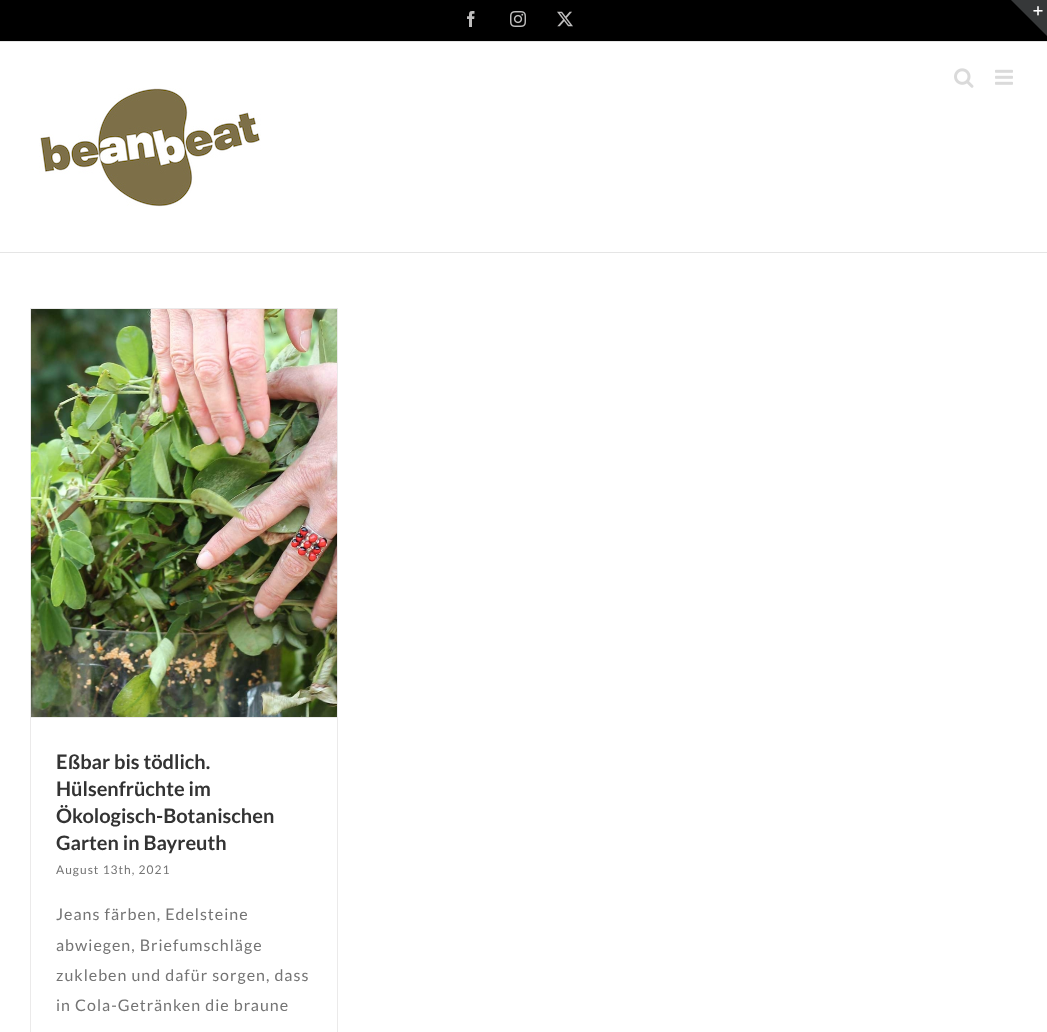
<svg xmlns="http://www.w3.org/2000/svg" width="1047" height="1032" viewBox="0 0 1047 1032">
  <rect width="100%" height="100%" fill="#fff"/>
  <path d="M0 0h1047v41H0z" fill="#000"/>
  <path d="M0 41h1047v1H0z" fill="#e5e5e5"/>
  <image x="467" y="11" width="8" height="16" href="img/1.png"/>
  <image x="510" y="11" width="16" height="16" href="img/2.png"/>
  <image x="557" y="11" width="16" height="16" href="img/3.png"/>
  <path d="M0 252h1047v1H0z" fill="#e5e5e5"/>
  <image x="954" y="68" width="20" height="20" href="img/4.png"/>
  <image x="995" y="69" width="18" height="16" href="img/5.png"/>
  <image x="39" y="88" width="222" height="119" href="img/6.png"/>
  <path d="M1011 0H1047V36Z" fill="#363839"/>
  <image x="1033" y="6" width="10" height="10" href="img/7.png"/>
  <path d="M30 308h308v1H30z" fill="#ebeaea"/>
  <path d="M337 308h1v724H337z" fill="#ebeaea"/>
  <path d="M30 308h1v724H30z" fill="#ebeaea"/>
  <path d="M31 717h306v1H31z" fill="#ebeaea"/>
  <image x="31" y="309" width="306" height="408" href="img/8.png"/>
  <g font-family="Lato" font-size="20" font-weight="bold" fill="#333">
    <text x="56" y="769">Eßbar bis tödlich.</text>
    <text x="56" y="796">Hülsenfrüchte im</text>
    <text x="56" y="823">Ökologisch-Botanischen</text>
    <text x="56" y="850">Garten in Bayreuth</text>
  </g>
  <text x="56" y="874" font-family="Lato" font-size="12" letter-spacing="1" fill="#747474">August 13th, 2021</text>
  <g font-family="Lato" font-size="16" letter-spacing="1" fill="#747474">
    <text x="56" y="920">Jeans färben, Edelsteine</text>
    <text x="56" y="951">abwiegen, Briefumschläge</text>
    <text x="56" y="981">zukleben und dafür sorgen, dass</text>
    <text x="56" y="1011">in Cola-Getränken die braune</text>
  </g>
</svg>
